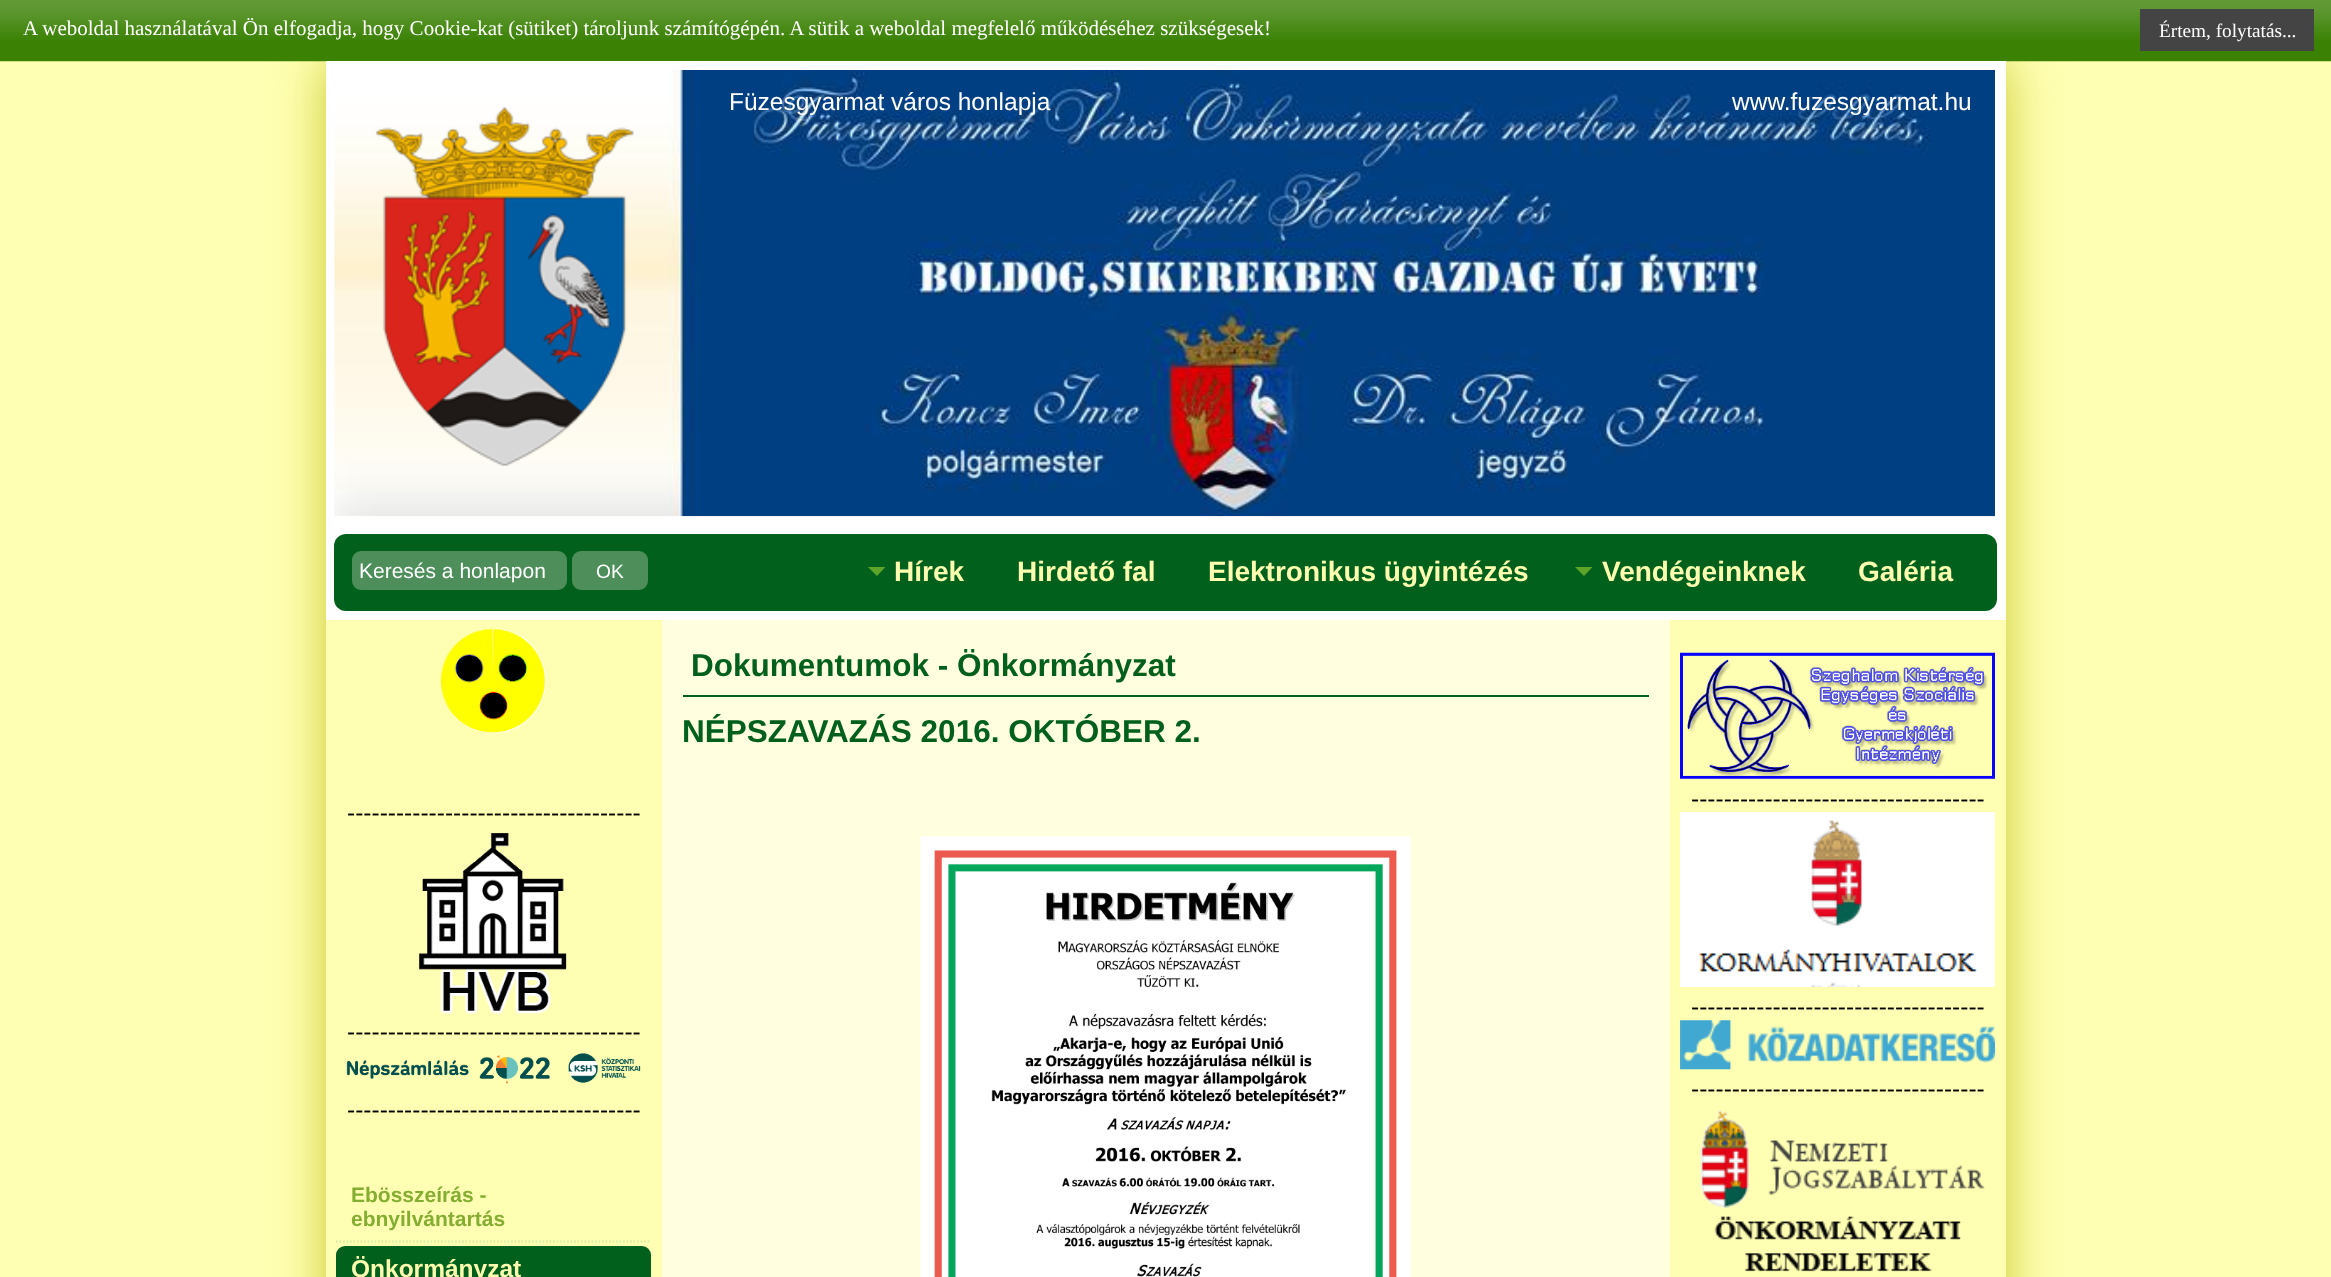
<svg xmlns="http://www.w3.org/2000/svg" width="2331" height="1277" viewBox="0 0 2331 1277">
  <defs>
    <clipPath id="clip1"><path d="M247 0H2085V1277H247ZM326 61H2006V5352H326Z" clip-rule="evenodd"/></clipPath>
  </defs>
  <rect width="100%" height="100%" fill="#ffffb3"/>
  <g clip-path="url(#clip1)">
    <path d="M326 61h1680v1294H326z" fill="#caca2c" filter="blur(26px)"/>
  </g>
  <image x="0" y="0" width="2331" height="62" href="img/1.png"/>
  <path d="M2140 9h174v42H2140z" fill="#444"/>
  <path d="M326 61h1680v559H326z" fill="#fff"/>
  <image x="334" y="70" width="1661" height="447" href="img/2.png"/>
  <image x="375" y="106" width="259" height="360" href="img/3.png"/>
  <rect x="334" y="534" width="1663" height="77" rx="12" fill="#01601c"/>
  <rect x="353" y="552" width="213" height="37" rx="8" fill="#4d8e5a" stroke="#4d8e5a" stroke-width="2"/>
  <rect x="573" y="552" width="74" height="37" rx="8" fill="#4d8e5a" stroke="#4d8e5a" stroke-width="2"/>
  <path d="M868 567H885.5L877 576Z" fill="#5da529"/>
  <path d="M1575 567H1592.5L1584 576Z" fill="#5da529"/>
  <path d="M662 620h1008v657H662z" fill="#ffffe0"/>
  <path d="M683 695h966v2H683z" fill="#00601b"/>
  <image x="920" y="836" width="491" height="441" href="img/4.png"/>
  <image x="441" y="628" width="105" height="106" href="img/5.png"/>
  <image x="362" y="826" width="263" height="188" href="img/6.png"/>
  <image x="346" y="1053" width="295" height="31" href="img/7.png"/>
  <path d="M336 1241.5H651" fill="none" stroke="#d3eda1" stroke-width="1.8" stroke-dasharray="1.75 1.75"/>
  <rect x="336" y="1246" width="315" height="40" rx="9" fill="#01601c"/>
  <image x="1680" y="652" width="315" height="127" href="img/8.png"/>
  <image x="1680" y="812" width="315" height="175" href="img/9.png"/>
  <image x="1680" y="1020" width="315" height="50" href="img/10.png"/>
  <image x="1700" y="1110" width="285" height="162" href="img/11.png"/>
  <text x="23" y="35" font-family="Liberation Serif" font-size="21" fill="#fff">A weboldal használatával Ön elfogadja, hogy Cookie-kat (sütiket) tároljunk számítógépén. A sütik a weboldal megfelelő működéséhez szükségesek!</text>
  <text x="2159" y="37" font-family="Liberation Serif" font-size="19.25" fill="#fff">Értem, folytatás...</text>
  <g font-family="Liberation Sans" font-size="24.5" fill="#fff">
    <text x="729" y="110">Füzesgyarmat város honlapja</text>
    <text x="1732" y="110">www.fuzesgyarmat.hu</text>
  </g>
  <text x="359" y="578" font-family="Liberation Sans" font-size="21" fill="#fff">Keresés a honlapon</text>
  <text x="596" y="578" font-family="Liberation Sans" font-size="19.25" fill="#fff">OK</text>
  <g font-family="Liberation Sans" font-size="28" font-weight="bold" fill="#ffffb0">
    <text x="894" y="581">Hírek</text>
    <text x="1017" y="581">Hirdető fal</text>
    <text x="1208" y="581">Elektronikus ügyintézés</text>
    <text x="1602" y="581">Vendégeinknek</text>
    <text x="1858" y="581">Galéria</text>
  </g>
  <g font-family="Liberation Sans" font-size="31.5" font-weight="bold" fill="#00601b">
    <text x="691" y="676">Dokumentumok - Önkormányzat</text>
    <text x="682" y="742">NÉPSZAVAZÁS 2016. OKTÓBER 2.</text>
  </g>
  <g font-family="Liberation Sans" font-size="24.5" fill="#000">
    <text x="347" y="821">------------------------------------</text>
    <text x="347" y="1040">------------------------------------</text>
    <text x="347" y="1118">------------------------------------</text>
  </g>
  <g font-family="Liberation Sans" font-size="21" font-weight="bold" fill="#84ad31">
    <text x="351" y="1202">Ebösszeírás -</text>
    <text x="351" y="1226">ebnyilvántartás</text>
  </g>
  <text x="351" y="1277" font-family="Liberation Sans" font-size="24.5" font-weight="bold" fill="#ffffb0">Önkormányzat</text>
  <g font-family="Liberation Sans" font-size="24.5" fill="#000">
    <text x="1691" y="807">------------------------------------</text>
    <text x="1691" y="1015">------------------------------------</text>
    <text x="1691" y="1097">------------------------------------</text>
  </g>
</svg>
